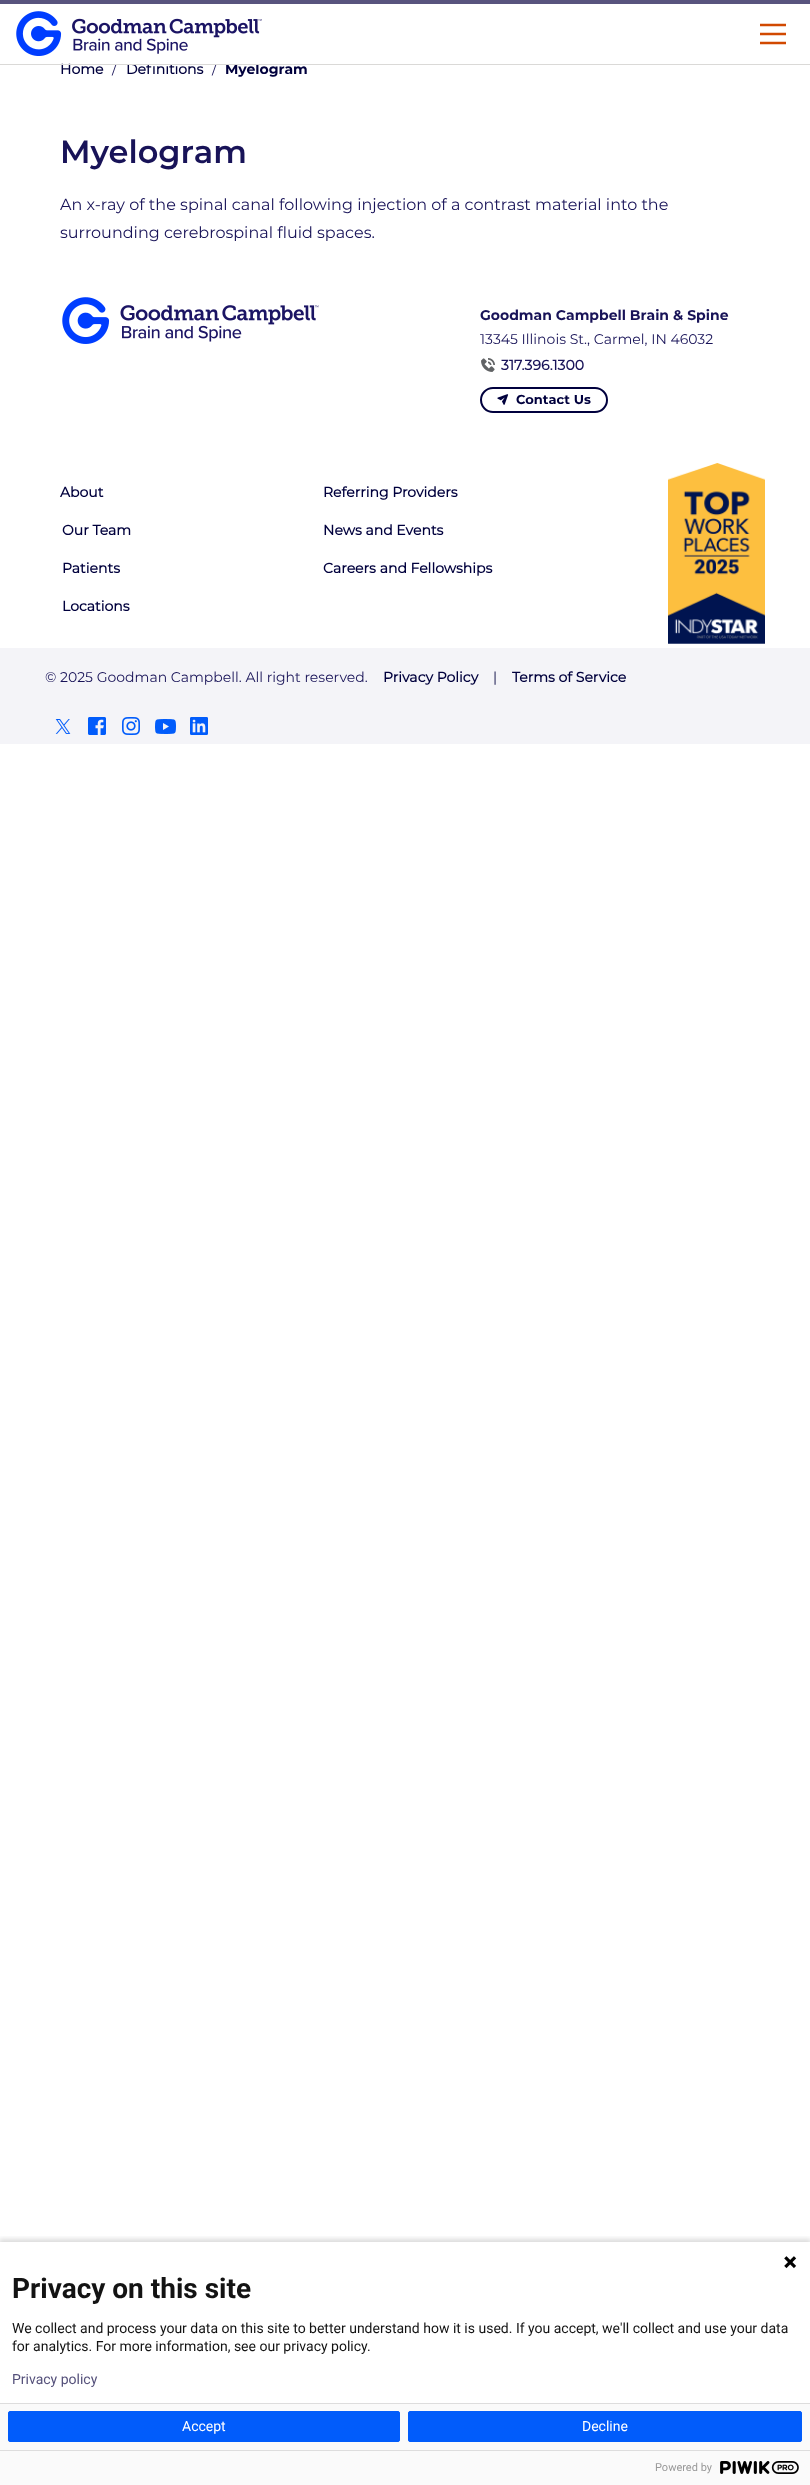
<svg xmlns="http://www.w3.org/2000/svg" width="810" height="2485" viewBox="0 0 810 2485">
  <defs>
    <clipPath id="clip1"><path d="M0 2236h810v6H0z"/></clipPath>
  </defs>
  <rect width="100%" height="100%" fill="#fff"/>
  <path d="M0 0h810v4H0z" fill="#58547e"/>
  <image x="16" y="11" width="246" height="45" href="img/1.png"/>
  <path d="M760 25H786M760 34H786M760 43H786" fill="none" stroke="#d14900" stroke-width="2.6"/>
  <image x="62" y="297" width="257" height="47" href="img/2.png"/>
  <image x="481" y="358" width="14" height="14" href="img/3.png"/>
  <rect x="481" y="388" width="126" height="24" rx="12" fill="none" stroke="#00003d" stroke-width="2"/>
  <image x="497" y="394" width="12" height="11" href="img/4.png"/>
  <image x="668" y="463" width="97" height="181" href="img/5.png"/>
  <path d="M0 648h810v96H0z" fill="#f4f4f8"/>
  <image x="55" y="719" width="16" height="15" href="img/6.png"/>
  <image x="88" y="717" width="18" height="18" href="img/7.png"/>
  <image x="122" y="717" width="18" height="18" href="img/8.png"/>
  <image x="155" y="719" width="21" height="15" href="img/9.png"/>
  <image x="190" y="717" width="18" height="18" href="img/10.png"/>
  <g clip-path="url(#clip1)">
    <path d="M-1 2239h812v245H-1z" fill="#00000024" filter="blur(2.5px)"/>
  </g>
  <image x="784" y="2256" width="13" height="13" href="img/11.png"/>
  <path d="M0 2404h810v46H0z" fill="#fafafa"/>
  <path d="M0 2403h810v1H0z" fill="#ddd"/>
  <rect x="8.5" y="2411.5" width="391" height="30" rx="1.5" fill="#015cfb" stroke="#015cfb"/>
  <rect x="408.5" y="2411.5" width="393" height="30" rx="1.5" fill="#015cfb" stroke="#015cfb"/>
  <path d="M0 2451h810v34H0z" fill="#fafafa"/>
  <path d="M0 2450h810v1H0z" fill="#ddd"/>
  <image x="720" y="2461" width="79" height="13" href="img/12.png"/>
  <text x="60" y="74" font-family="Montserrat" font-size="14" font-weight="bold" fill="#00003d">Home</text>
  <text x="112" y="74" font-family="Montserrat" font-size="14" fill="#181358">/</text>
  <text x="126" y="74" font-family="Montserrat" font-size="14" font-weight="bold" fill="#00003d">Definitions</text>
  <text x="212" y="74" font-family="Montserrat" font-size="14" fill="#181358">/</text>
  <text x="225" y="74" font-family="'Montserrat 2'" font-size="14" font-weight="bold" fill="#00003d">Myelogram</text>
  <path d="M0 64h810v1H0z" fill="#dad9d7"/>
  <path d="M115 62h144v2H115z" fill="#fff"/>
  <text x="60" y="163" font-family="Montserrat" font-size="32" font-weight="600" fill="#181358">Myelogram</text>
  <g font-family="Montserrat" font-size="16" fill="#181358">
    <text x="60" y="210">An x-ray of the spinal canal following injection of a contrast material into the</text>
    <text x="60" y="238">surrounding cerebrospinal fluid spaces.</text>
  </g>
  <text x="480" y="320" font-family="'Montserrat 2'" font-size="14" font-weight="bold" fill="#181358">Goodman Campbell Brain &amp; Spine</text>
  <text x="480" y="344" font-family="Montserrat" font-size="14" fill="#181358">13345 Illinois St., Carmel, IN 46032</text>
  <text x="501" y="370" font-family="Montserrat" font-size="14" font-weight="bold" fill="#181358">317.396.1300</text>
  <text x="516" y="404" font-family="'Montserrat 2'" font-size="13" font-weight="bold" fill="#00003d">Contact Us</text>
  <g font-family="Montserrat" font-size="14" font-weight="bold" fill="#00003d">
    <text x="60" y="497">About</text>
    <text x="323" y="497">Referring Providers</text>
    <text x="62" y="535">Our Team</text>
    <text x="323" y="535">News and Events</text>
    <text x="62" y="573">Patients</text>
    <text x="323" y="573">Careers and Fellowships</text>
    <text x="62" y="611">Locations</text>
  </g>
  <text x="45" y="682" font-family="Montserrat" font-size="14" fill="#181358">© 2025 Goodman Campbell. All right reserved.</text>
  <text x="383" y="682" font-family="Montserrat" font-size="14" font-weight="bold" fill="#00003d">Privacy Policy</text>
  <text x="493" y="682" font-family="Montserrat" font-size="14" fill="#00003d">|</text>
  <text x="512" y="682" font-family="Montserrat" font-size="14" font-weight="bold" fill="#00003d">Terms of Service</text>
  <text x="12" y="2298" font-family="Roboto" font-size="28" font-weight="bold" fill="#131313">Privacy on this site</text>
  <g font-family="Roboto" font-size="14" fill="#131313">
    <text x="12" y="2333">We collect and process your data on this site to better understand how it is used. If you accept, we'll collect and use your data</text>
    <text x="12" y="2351">for analytics. For more information, see our privacy policy.</text>
  </g>
  <text x="12" y="2384" font-family="Roboto" font-size="14" fill="#55517b">Privacy policy</text>
  <g font-family="Roboto" font-size="14" fill="#fff">
    <text x="182" y="2431">Accept</text>
    <text x="582" y="2431">Decline</text>
  </g>
  <text x="655" y="2471" font-family="Roboto" font-size="11" fill="#999">Powered by</text>
</svg>
